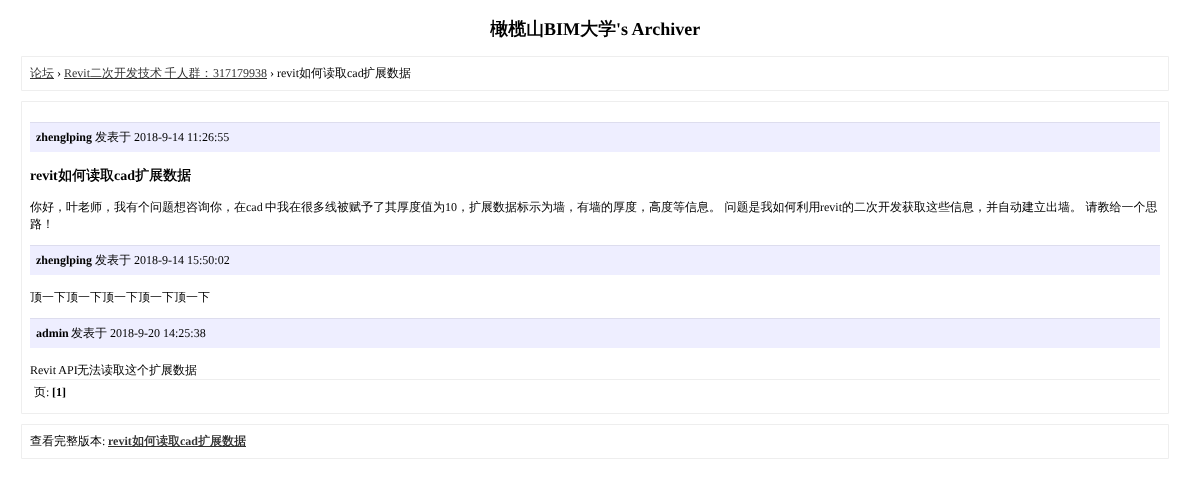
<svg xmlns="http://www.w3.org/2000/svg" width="1190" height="493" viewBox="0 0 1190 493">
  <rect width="100%" height="100%" fill="#fff"/>
  <path d="M21.5 56.5h1147v34H21.5z" fill="none" stroke="#eee"/>
  <path d="M30 78h24v1H30z" fill="#333"/>
  <path d="M64 78h203v1H64z" fill="#333"/>
  <path d="M21.5 101.5h1147v312H21.5z" fill="none" stroke="#eee"/>
  <path d="M30 123h1130v29H30z" fill="#eef"/>
  <path d="M30 122h1130v1H30z" fill="#dde"/>
  <path d="M30 246h1130v29H30z" fill="#eef"/>
  <path d="M30 245h1130v1H30z" fill="#dde"/>
  <path d="M30 319h1130v29H30z" fill="#eef"/>
  <path d="M30 318h1130v1H30z" fill="#dde"/>
  <path d="M30 379h1130v1H30z" fill="#eee"/>
  <path d="M21.5 424.5h1147v34H21.5z" fill="none" stroke="#eee"/>
  <path d="M108 446h138v1H108z" fill="#333"/>
  <text x="490" y="35" font-family="WenQuanYi Zen Hei" font-size="18" font-weight="bold" fill="#000">橄榄山</text>
  <text x="544" y="35" font-family="Liberation Serif" font-size="18" font-weight="bold" fill="#000">BIM</text>
  <text x="580" y="35" font-family="WenQuanYi Zen Hei" font-size="18" font-weight="bold" fill="#000">大学</text>
  <text x="616" y="35" font-family="Liberation Serif" font-size="18" font-weight="bold" fill="#000">'s Archiver</text>
  <text x="30" y="77" font-family="WenQuanYi Zen Hei" font-size="12" font-weight="500" fill="#333">论坛</text>
  <text x="57" y="77" font-family="Liberation Serif" font-size="12" fill="#000">›</text>
  <text x="64" y="77" font-family="Liberation Serif" font-size="12" fill="#333">Revit</text>
  <text x="90" y="77" word-spacing="-1" font-family="WenQuanYi Zen Hei" font-size="12" font-weight="500" fill="#333">二次开发技术 千人群：</text>
  <text x="213" y="77" font-family="Liberation Serif" font-size="12" fill="#333">317179938</text>
  <text x="270" y="77" font-family="Liberation Serif" font-size="12" fill="#000">› revit</text>
  <text x="299" y="77" font-family="WenQuanYi Zen Hei" font-size="12" font-weight="500" fill="#000">如何读取</text>
  <text x="347" y="77" font-family="Liberation Serif" font-size="12" fill="#000">cad</text>
  <text x="363" y="77" font-family="WenQuanYi Zen Hei" font-size="12" font-weight="500" fill="#000">扩展数据</text>
  <text x="36" y="141" font-family="Liberation Serif" font-size="12" font-weight="bold" fill="#000">zhenglping</text>
  <text x="95" y="141" font-family="WenQuanYi Zen Hei" font-size="12" font-weight="500" fill="#000">发表于</text>
  <text x="134" y="141" font-family="Liberation Serif" font-size="12" fill="#000">2018-9-14 11:26:55</text>
  <text x="30" y="180" font-family="Liberation Serif" font-size="14" font-weight="bold" fill="#000">revit</text>
  <text x="58" y="180" font-family="WenQuanYi Zen Hei" font-size="14" font-weight="bold" fill="#000">如何读取</text>
  <text x="114" y="180" font-family="Liberation Serif" font-size="14" font-weight="bold" fill="#000">cad</text>
  <text x="135" y="180" font-family="WenQuanYi Zen Hei" font-size="14" font-weight="bold" fill="#000">扩展数据</text>
  <text x="30" y="211" font-family="WenQuanYi Zen Hei" font-size="12" font-weight="500" fill="#000">你好，叶老师，我有个问题想咨询你，在</text>
  <text x="246" y="211" font-family="Liberation Serif" font-size="12" fill="#000">cad</text>
  <text x="265" y="211" font-family="WenQuanYi Zen Hei" font-size="12" font-weight="500" fill="#000">中我在很多线被赋予了其厚度值为</text>
  <text x="445" y="211" font-family="Liberation Serif" font-size="12" fill="#000">10</text>
  <text x="457" y="211" font-family="WenQuanYi Zen Hei" font-size="12" font-weight="500" fill="#000">，扩展数据标示为墙，有墙的厚度，高度等信息。 问题是我如何利用</text>
  <text x="820" y="211" font-family="Liberation Serif" font-size="12" fill="#000">revit</text>
  <g font-family="WenQuanYi Zen Hei" font-size="12" font-weight="500" fill="#000">
    <text x="842" y="211">的二次开发获取这些信息，并自动建立出墙。 请教给一个思</text>
    <text x="30" y="228">路！</text>
  </g>
  <text x="36" y="264" font-family="Liberation Serif" font-size="12" font-weight="bold" fill="#000">zhenglping</text>
  <text x="95" y="264" font-family="WenQuanYi Zen Hei" font-size="12" font-weight="500" fill="#000">发表于</text>
  <text x="134" y="264" font-family="Liberation Serif" font-size="12" fill="#000">2018-9-14 15:50:02</text>
  <text x="30" y="301" font-family="WenQuanYi Zen Hei" font-size="12" font-weight="500" fill="#000">顶一下顶一下顶一下顶一下顶一下</text>
  <text x="36" y="337" font-family="Liberation Serif" font-size="12" font-weight="bold" fill="#000">admin</text>
  <text x="71" y="337" font-family="WenQuanYi Zen Hei" font-size="12" font-weight="500" fill="#000">发表于</text>
  <g font-family="Liberation Serif" font-size="12" fill="#000">
    <text x="110" y="337">2018-9-20 14:25:38</text>
    <text x="30" y="374">Revit API</text>
  </g>
  <g font-family="WenQuanYi Zen Hei" font-size="12" font-weight="500" fill="#000">
    <text x="77" y="374">无法读取这个扩展数据</text>
    <text x="34" y="396">页</text>
  </g>
  <text x="46" y="396" font-family="Liberation Serif" font-size="12" fill="#000">:</text>
  <text x="52" y="396" font-family="Liberation Serif" font-size="12" font-weight="bold" fill="#000">[1]</text>
  <text x="30" y="445" font-family="WenQuanYi Zen Hei" font-size="12" font-weight="500" fill="#000">查看完整版本</text>
  <text x="102" y="445" font-family="Liberation Serif" font-size="12" fill="#000">:</text>
  <text x="108" y="445" font-family="Liberation Serif" font-size="12" font-weight="bold" fill="#333">revit</text>
  <text x="132" y="445" font-family="WenQuanYi Zen Hei" font-size="12" font-weight="bold" fill="#333">如何读取</text>
  <text x="180" y="445" font-family="Liberation Serif" font-size="12" font-weight="bold" fill="#333">cad</text>
  <text x="198" y="445" font-family="WenQuanYi Zen Hei" font-size="12" font-weight="bold" fill="#333">扩展数据</text>
</svg>
